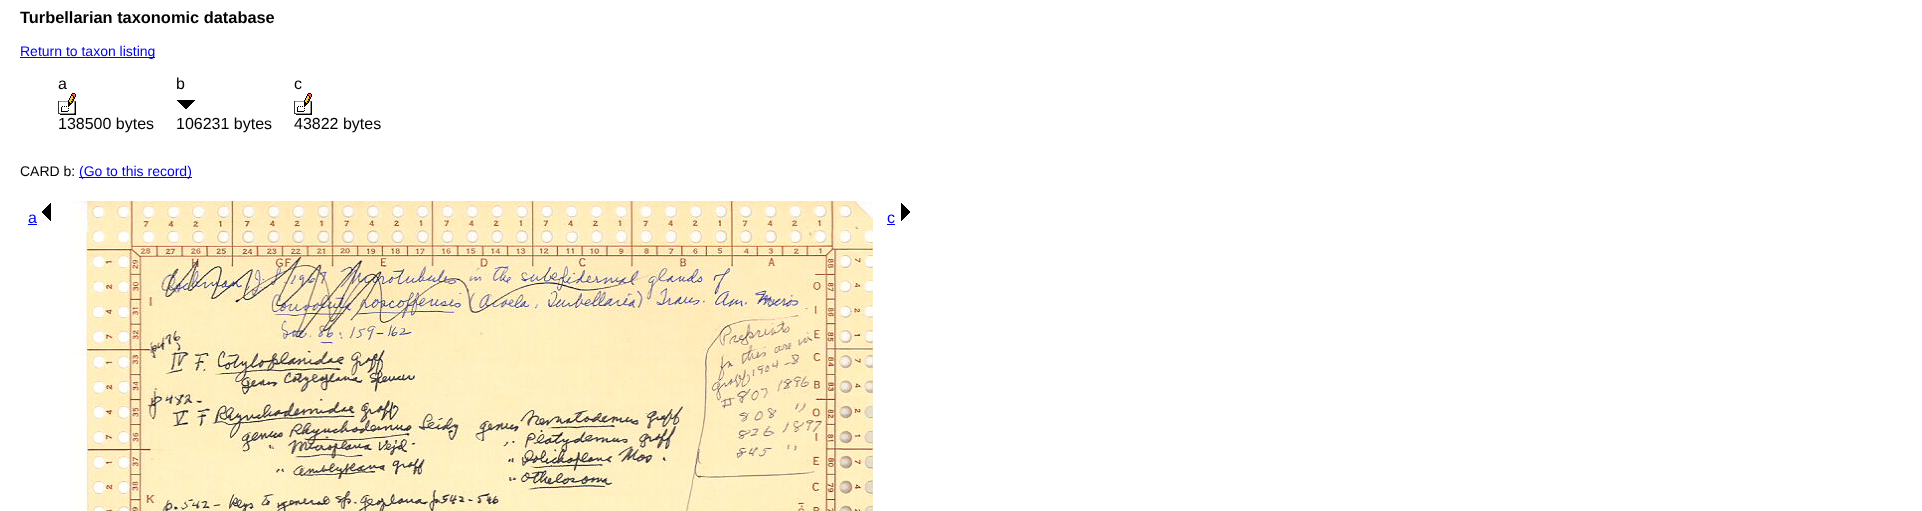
<svg xmlns="http://www.w3.org/2000/svg" width="1922" height="511" viewBox="0 0 1922 511">
  <rect width="100%" height="100%" fill="#fff"/>
  <path d="M20 57h135v1H20z" fill="#00e"/>
  <image x="58" y="93" width="18" height="22" href="img/1.png"/>
  <image x="177" y="100" width="18" height="9" href="img/2.png"/>
  <image x="294" y="93" width="18" height="22" href="img/1.png"/>
  <path d="M79 177h113v1H79z" fill="#00e"/>
  <path d="M28 224h9v1H28z" fill="#00e"/>
  <image x="42" y="203" width="9" height="18" href="img/3.png"/>
  <image x="71" y="201" width="802" height="310" href="img/4.png"/>
  <path d="M887 224h8v1H887z" fill="#00e"/>
  <image x="901" y="203" width="9" height="18" href="img/5.png"/>
  <text x="20" y="23" font-family="Liberation Sans" font-size="16.4" font-weight="bold" fill="#000">Turbellarian taxonomic database</text>
  <text x="20" y="56" font-family="Liberation Sans" font-size="14" fill="#00e">Return to taxon listing</text>
  <g font-family="Liberation Sans" font-size="16" fill="#000">
    <text x="58" y="89">a</text>
    <text x="58" y="129">138500 bytes</text>
    <text x="176" y="89">b</text>
    <text x="176" y="129">106231 bytes</text>
    <text x="294" y="89">c</text>
    <text x="294" y="129">43822 bytes</text>
  </g>
  <text x="20" y="176" font-family="Liberation Sans" font-size="14" fill="#000">CARD b:</text>
  <text x="79" y="176" font-family="Liberation Sans" font-size="14" fill="#00e">(Go to this record)</text>
  <g font-family="Liberation Sans" font-size="16" fill="#00e">
    <text x="28" y="223">a</text>
    <text x="887" y="223">c</text>
  </g>
</svg>
